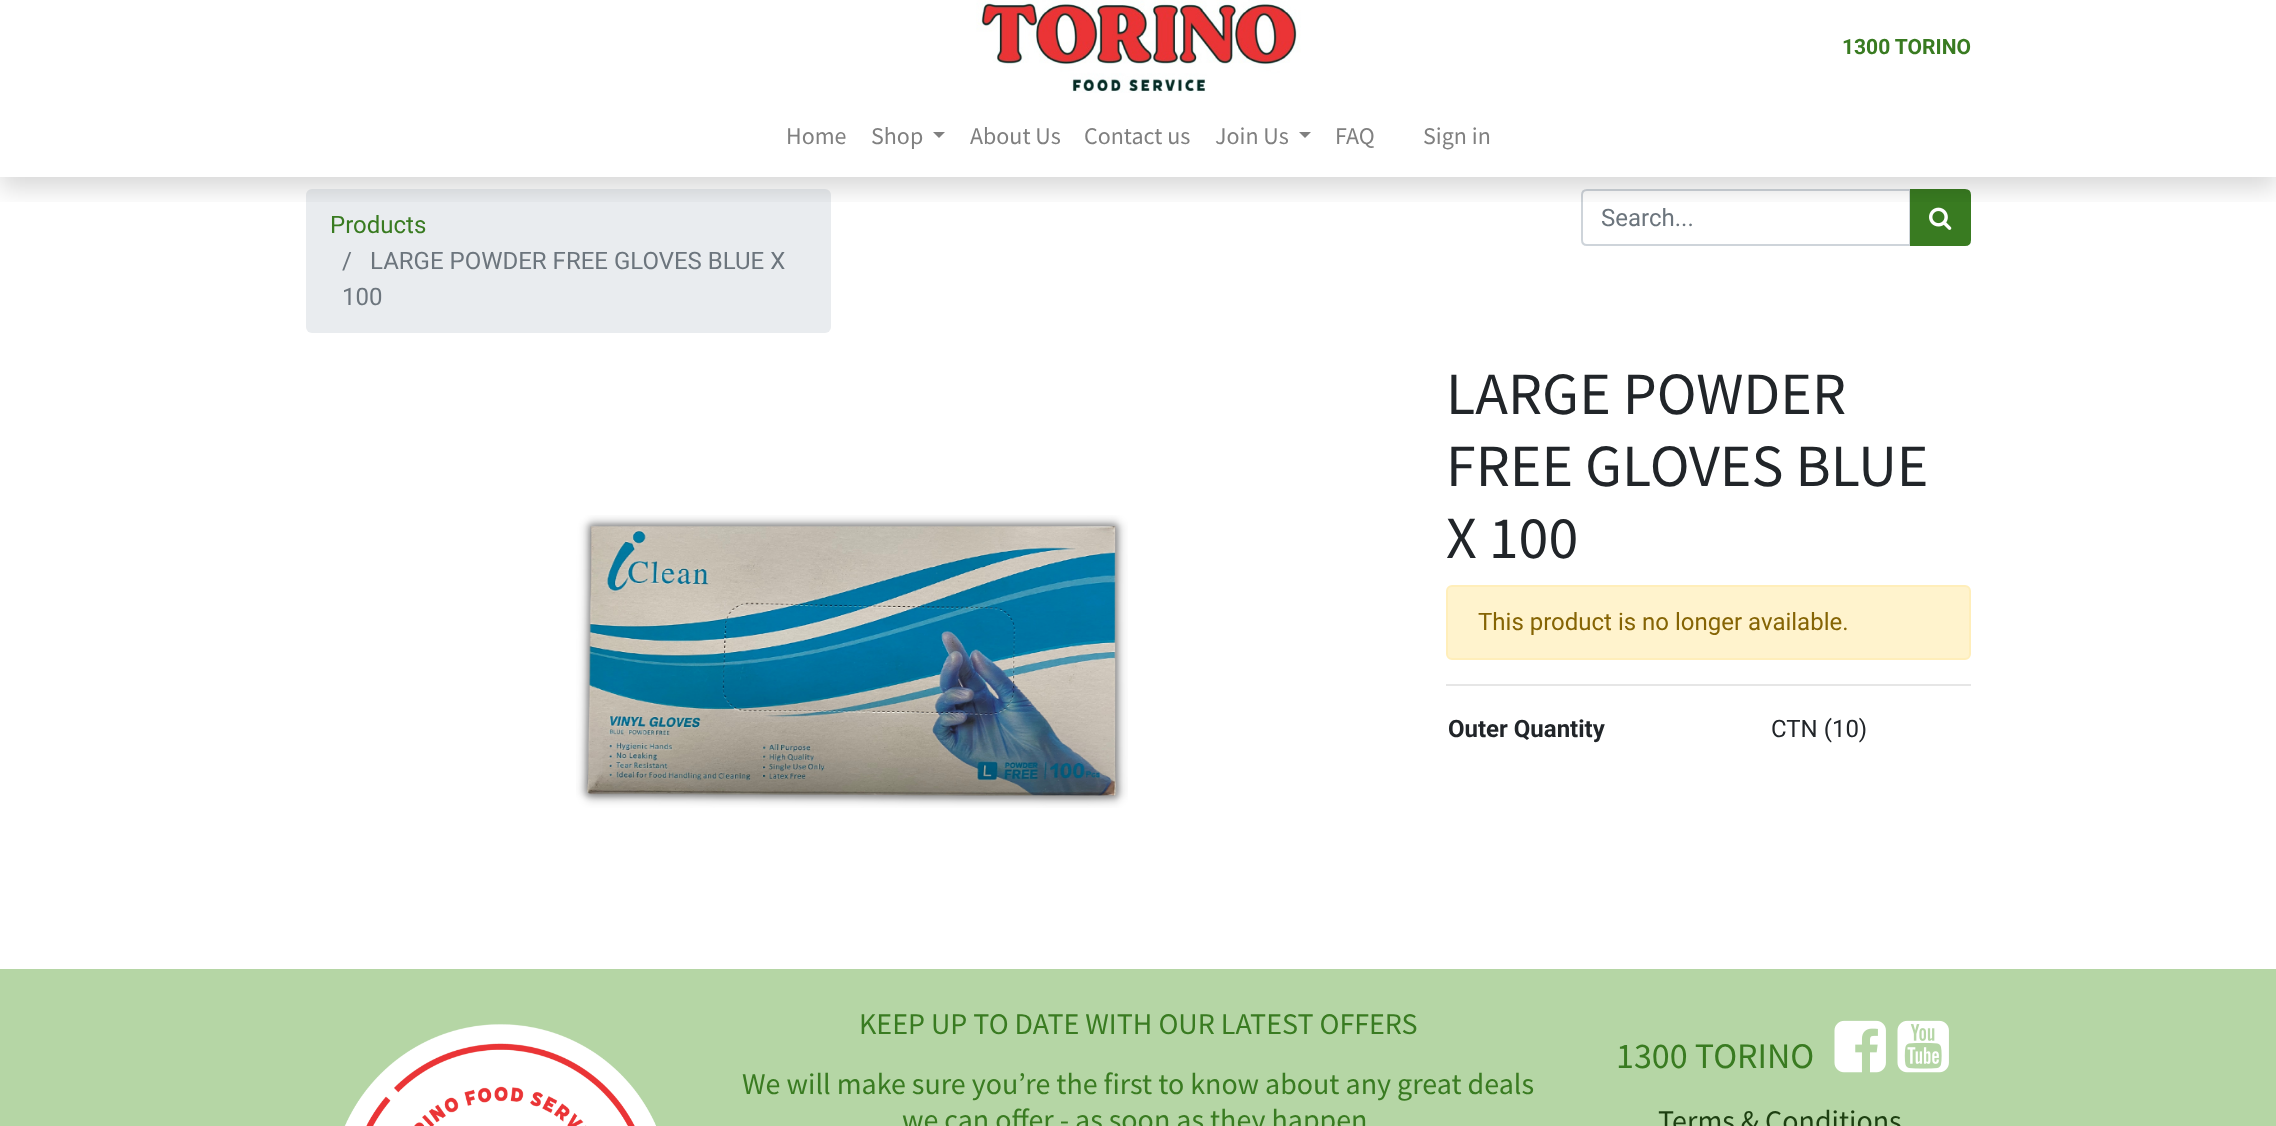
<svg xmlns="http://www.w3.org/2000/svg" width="2276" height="1126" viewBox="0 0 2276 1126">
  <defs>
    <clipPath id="clip1"><path d="M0 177h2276v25H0z"/></clipPath>
  </defs>
  <rect width="100%" height="100%" fill="#fff"/>
  <rect x="306" y="189" width="525" height="144" rx="6" fill="#e9ecef"/>
  <path d="M1587 190H1910V245H1587C1584 245 1582 243 1582 240V195C1582 192 1584 190 1587 190Z" fill="none" stroke="#ced4da" stroke-width="2"/>
  <path d="M1911 190H1965C1968 190 1970 192 1970 195V240C1970 243 1968 245 1965 245H1911Z" fill="#397b21" stroke="#397b21" stroke-width="2"/>
  <image x="1929" y="207" width="23" height="23" href="img/2.png"/>
  <g clip-path="url(#clip1)">
    <path d="M0 12h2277v177H0z" fill="#00000026" filter="blur(12px)"/>
  </g>
  <image x="976" y="0" width="325" height="93" href="img/1.png"/>
  <path d="M933 132H945L939 138Z" fill="#808080"/>
  <path d="M1299 132H1311L1305 138Z" fill="#808080"/>
  <image x="576" y="515" width="552" height="293" href="img/3.png"/>
  <rect x="1447" y="586" width="523" height="73" rx="5" fill="#fff3cd" stroke="#ffeeba" stroke-width="2"/>
  <path d="M1446 684h525v2H1446z" fill="#e6e6e6"/>
  <path d="M0 969h2276v157H0z" fill="#b5d6a5"/>
  <image x="344" y="1024" width="312" height="102" href="img/4.png"/>
  <image x="1834" y="1020" width="52" height="53" href="img/5.png"/>
  <image x="1897" y="1020" width="52" height="53" href="img/6.png"/>
  <text x="1842" y="54" font-family="Roboto" font-size="21" font-weight="bold" fill="#397b21">1300 TORINO</text>
  <g font-family="Source Sans Pro" font-size="24" fill="#808080">
    <text x="786" y="144">Home</text>
    <text x="871" y="144">Shop</text>
    <text x="970" y="144">About Us</text>
    <text x="1084" y="144">Contact us</text>
    <text x="1215" y="144">Join Us</text>
    <text x="1335" y="144">FAQ</text>
    <text x="1423" y="144">Sign in</text>
  </g>
  <text x="330" y="233" font-family="Roboto" font-size="24" fill="#397b21">Products</text>
  <g font-family="Roboto" font-size="24" fill="#6c757d">
    <text x="342" y="269">/</text>
    <text x="370" y="269">LARGE POWDER FREE GLOVES BLUE X</text>
    <text x="342" y="305">100</text>
    <text x="1601" y="226">Search...</text>
  </g>
  <g font-family="Source Sans Pro" font-size="60" fill="#212529">
    <text x="1446" y="414">LARGE POWDER</text>
    <text x="1446" y="486">FREE GLOVES BLUE</text>
    <text x="1446" y="558">X 100</text>
  </g>
  <text x="1478" y="630" font-family="Roboto" font-size="24" fill="#856404">This product is no longer available.</text>
  <text x="1448" y="737" font-family="Roboto" font-size="24" font-weight="bold" fill="#212529">Outer Quantity</text>
  <text x="1771" y="737" font-family="Roboto" font-size="24" fill="#212529">CTN (10)</text>
  <g font-family="Source Sans Pro" font-size="30" fill="#397b21">
    <text x="859" y="1034">KEEP UP TO DATE WITH OUR LATEST OFFERS</text>
    <text x="742" y="1094">We will make sure you’re the first to know about any great deals</text>
    <text x="902" y="1130">we can offer - as soon as they happen</text>
  </g>
  <text x="1616" y="1068" font-family="Source Sans Pro" font-size="36" fill="#397b21">1300 TORINO</text>
  <text x="1658" y="1131" font-family="Source Sans Pro" font-size="30" fill="#1d3f11">Terms &amp; Conditions</text>
</svg>
